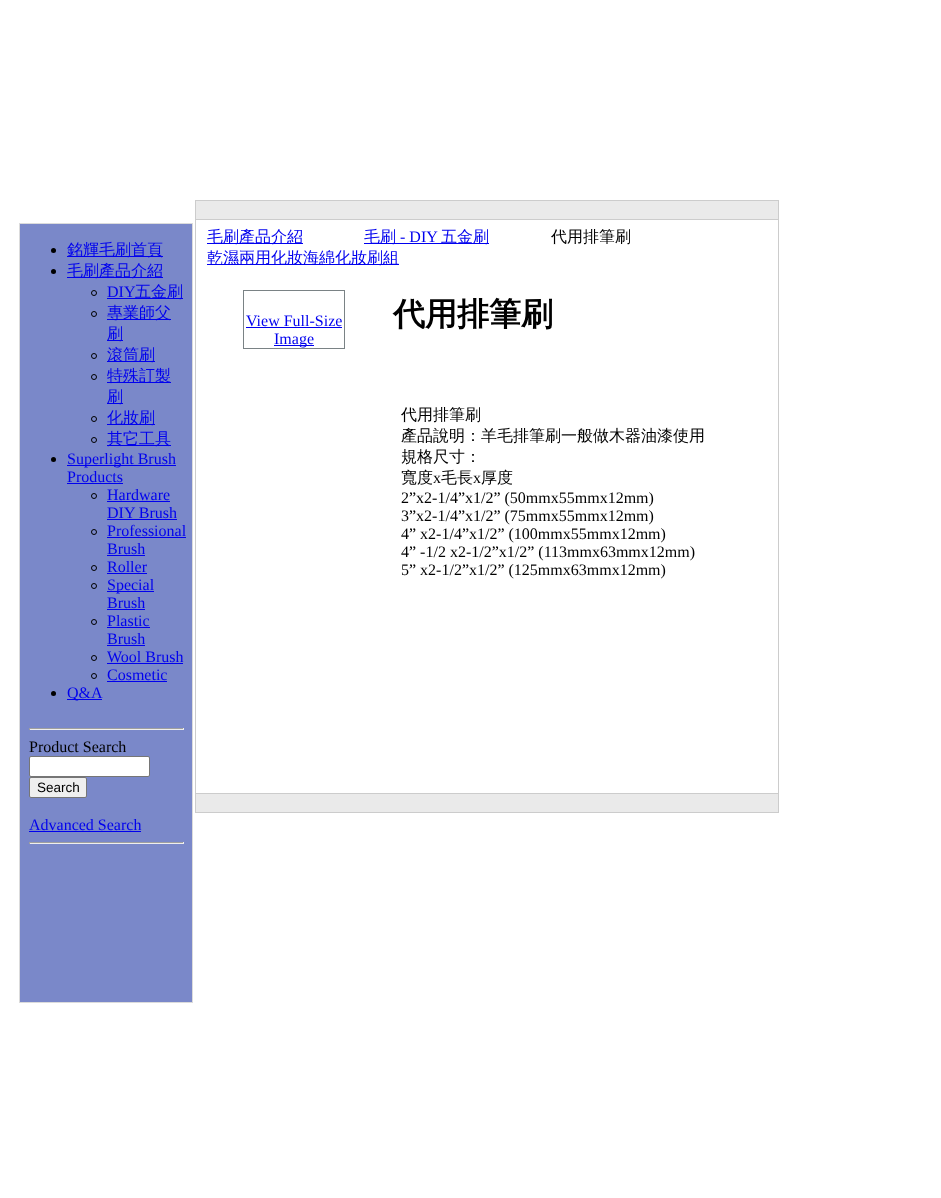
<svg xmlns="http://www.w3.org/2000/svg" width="941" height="1198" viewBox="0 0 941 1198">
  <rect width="100%" height="100%" fill="#fff"/>
  <path d="M19 223h174v780H19z" fill="#dbdbdb"/>
  <path d="M20 224h172v778H20z" fill="#7a88c9"/>
  <circle cx="53.5" cy="250.5" r="2.5" fill="#000"/>
  <path d="M67 256h96v1H67z" fill="#00e"/>
  <circle cx="53.5" cy="271.5" r="2.5" fill="#000"/>
  <path d="M67 277h96v1H67z" fill="#00e"/>
  <circle cx="94" cy="293" r="2.5" fill="none" stroke="#000"/>
  <path d="M107 298h76v1H107z" fill="#00e"/>
  <circle cx="94" cy="314" r="2.5" fill="none" stroke="#000"/>
  <path d="M107 319h64v1H107z" fill="#00e"/>
  <path d="M107 340h16v1H107z" fill="#00e"/>
  <circle cx="94" cy="356" r="2.5" fill="none" stroke="#000"/>
  <path d="M107 361h48v1H107z" fill="#00e"/>
  <circle cx="94" cy="377" r="2.5" fill="none" stroke="#000"/>
  <path d="M107 382h64v1H107z" fill="#00e"/>
  <path d="M107 403h16v1H107z" fill="#00e"/>
  <circle cx="94" cy="419" r="2.5" fill="none" stroke="#000"/>
  <path d="M107 424h48v1H107z" fill="#00e"/>
  <circle cx="94" cy="440" r="2.5" fill="none" stroke="#000"/>
  <path d="M107 445h64v1H107z" fill="#00e"/>
  <circle cx="53.5" cy="459.5" r="2.5" fill="#000"/>
  <path d="M67 465h109v1H67z" fill="#00e"/>
  <path d="M67 483h56v1H67z" fill="#00e"/>
  <circle cx="94" cy="496" r="2.5" fill="none" stroke="#000"/>
  <path d="M107 501h63v1H107z" fill="#00e"/>
  <path d="M107 519h70v1H107z" fill="#00e"/>
  <circle cx="94" cy="532" r="2.5" fill="none" stroke="#000"/>
  <path d="M107 537h79v1H107z" fill="#00e"/>
  <path d="M107 555h38v1H107z" fill="#00e"/>
  <circle cx="94" cy="568" r="2.5" fill="none" stroke="#000"/>
  <path d="M107 573h40v1H107z" fill="#00e"/>
  <circle cx="94" cy="586" r="2.5" fill="none" stroke="#000"/>
  <path d="M107 591h47v1H107z" fill="#00e"/>
  <path d="M107 609h38v1H107z" fill="#00e"/>
  <circle cx="94" cy="622" r="2.5" fill="none" stroke="#000"/>
  <path d="M107 627h43v1H107z" fill="#00e"/>
  <path d="M107 645h38v1H107z" fill="#00e"/>
  <circle cx="94" cy="658" r="2.5" fill="none" stroke="#000"/>
  <path d="M107 663h76v1H107z" fill="#00e"/>
  <circle cx="94" cy="676" r="2.5" fill="none" stroke="#000"/>
  <path d="M107 681h60v1H107z" fill="#00e"/>
  <circle cx="53.5" cy="693.5" r="2.5" fill="#000"/>
  <path d="M67 699h35v1H67z" fill="#00e"/>
  <path d="M29 728h155v1H29z" fill="#9f9f9f"/>
  <path d="M183 728h1v2H183z" fill="#eee"/>
  <path d="M29 729h155v1H29z" fill="#eee"/>
  <path d="M29 728h1v2H29z" fill="#9f9f9f"/>
  <rect x="29.5" y="756.5" width="120" height="20" rx="1.5" fill="#fff" stroke="#767676"/>
  <rect x="29.5" y="777.5" width="57" height="20" rx="1.5" fill="#efefef" stroke="#767676"/>
  <path d="M29 831h112v1H29z" fill="#00e"/>
  <path d="M29 842h155v1H29z" fill="#9f9f9f"/>
  <path d="M183 842h1v2H183z" fill="#eee"/>
  <path d="M29 843h155v1H29z" fill="#eee"/>
  <path d="M29 842h1v2H29z" fill="#9f9f9f"/>
  <path d="M195 200h584v613H195z" fill="#ccc"/>
  <path d="M196 201h582v18H196z" fill="#eaeaea"/>
  <path d="M196 220h582v573H196z" fill="#fff"/>
  <path d="M207 243h96v1H207z" fill="#00e"/>
  <path d="M364 243h125v1H364z" fill="#00e"/>
  <path d="M207 264h192v1H207z" fill="#00e"/>
  <path d="M243 290h102v59H243z" fill="#7a8285"/>
  <path d="M244 291h100v57H244z" fill="#fff"/>
  <path d="M246 327h96v1H246z" fill="#00e"/>
  <path d="M274 345h40v1H274z" fill="#00e"/>
  <path d="M196 794h582v18H196z" fill="#eaeaea"/>
  <g font-family="WenQuanYi Zen Hei" font-size="16" font-weight="500" fill="#00e">
    <text x="67" y="255">銘輝毛刷首頁</text>
    <text x="67" y="276">毛刷產品介紹</text>
  </g>
  <text x="107" y="297" font-family="Liberation Serif" font-size="16" fill="#00e">DIY</text>
  <g font-family="WenQuanYi Zen Hei" font-size="16" font-weight="500" fill="#00e">
    <text x="135" y="297">五金刷</text>
    <text x="107" y="318">專業師父</text>
    <text x="107" y="339">刷</text>
    <text x="107" y="360">滾筒刷</text>
    <text x="107" y="381">特殊訂製</text>
    <text x="107" y="402">刷</text>
    <text x="107" y="423">化妝刷</text>
    <text x="107" y="444">其它工具</text>
  </g>
  <g font-family="Liberation Serif" font-size="16" fill="#00e">
    <text x="67" y="464">Superlight Brush</text>
    <text x="67" y="482">Products</text>
    <text x="107" y="500">Hardware</text>
    <text x="107" y="518">DIY Brush</text>
    <text x="107" y="536">Professional</text>
    <text x="107" y="554">Brush</text>
    <text x="107" y="572">Roller</text>
    <text x="107" y="590">Special</text>
    <text x="107" y="608">Brush</text>
    <text x="107" y="626">Plastic</text>
    <text x="107" y="644">Brush</text>
    <text x="107" y="662">Wool Brush</text>
    <text x="107" y="680">Cosmetic</text>
    <text x="67" y="698">Q&amp;A</text>
  </g>
  <text x="29" y="752" font-family="Liberation Serif" font-size="16" fill="#000">Product Search</text>
  <text x="37" y="792" font-family="Liberation Sans" font-size="13.5" fill="#000">Search</text>
  <text x="29" y="830" font-family="Liberation Serif" font-size="16" fill="#00e">Advanced Search</text>
  <g font-family="WenQuanYi Zen Hei" font-size="16" font-weight="500" fill="#00e">
    <text x="207" y="242">毛刷產品介紹</text>
    <text x="364" y="242">毛刷</text>
  </g>
  <text x="400" y="242" font-family="Liberation Serif" font-size="16" fill="#00e">- DIY</text>
  <text x="441" y="242" font-family="WenQuanYi Zen Hei" font-size="16" font-weight="500" fill="#00e">五金刷</text>
  <text x="551" y="242" font-family="WenQuanYi Zen Hei" font-size="16" font-weight="500" fill="#000">代用排筆刷</text>
  <text x="207" y="263" font-family="WenQuanYi Zen Hei" font-size="16" font-weight="500" fill="#00e">乾濕兩用化妝海綿化妝刷組</text>
  <g font-family="Liberation Serif" font-size="16" fill="#00e">
    <text x="246" y="326">View Full-Size</text>
    <text x="274" y="344">Image</text>
  </g>
  <text x="393" y="325" font-family="WenQuanYi Zen Hei" font-size="32" font-weight="bold" fill="#000">代用排筆刷</text>
  <g font-family="WenQuanYi Zen Hei" font-size="16" font-weight="500" fill="#000">
    <text x="401" y="420">代用排筆刷</text>
    <text x="401" y="441">產品說明：羊毛排筆刷一般做木器油漆使用</text>
    <text x="401" y="462">規格尺寸：</text>
    <text x="401" y="483">寬度</text>
  </g>
  <text x="433" y="483" font-family="Liberation Serif" font-size="16" fill="#000">x</text>
  <text x="441" y="483" font-family="WenQuanYi Zen Hei" font-size="16" font-weight="500" fill="#000">毛長</text>
  <text x="473" y="483" font-family="Liberation Serif" font-size="16" fill="#000">x</text>
  <text x="481" y="483" font-family="WenQuanYi Zen Hei" font-size="16" font-weight="500" fill="#000">厚度</text>
  <g font-family="Liberation Serif" font-size="16" fill="#000">
    <text x="401" y="503">2”x2-1/4”x1/2” (50mmx55mmx12mm)</text>
    <text x="401" y="521">3”x2-1/4”x1/2” (75mmx55mmx12mm)</text>
    <text x="401" y="539">4” x2-1/4”x1/2” (100mmx55mmx12mm)</text>
    <text x="401" y="557">4” -1/2 x2-1/2”x1/2” (113mmx63mmx12mm)</text>
    <text x="401" y="575">5” x2-1/2”x1/2” (125mmx63mmx12mm)</text>
  </g>
</svg>
